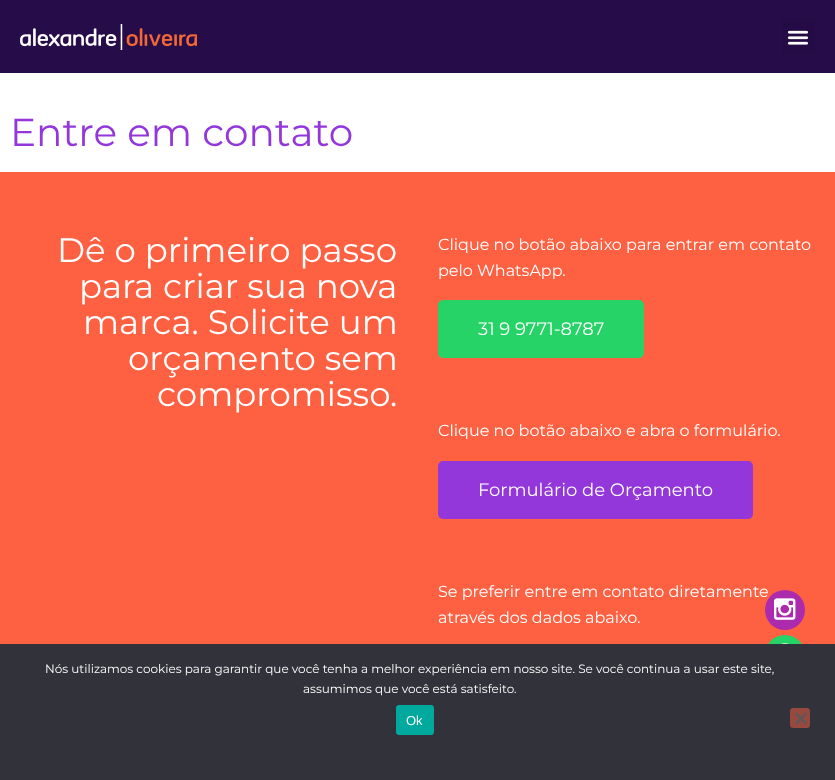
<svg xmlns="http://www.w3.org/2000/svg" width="835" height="780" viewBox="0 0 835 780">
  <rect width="100%" height="100%" fill="#fff"/>
  <path d="M0 0h835v73H0z" fill="#270c4a"/>
  <image x="20" y="24" width="177" height="26" href="img/1.png"/>
  <rect x="782" y="20" width="33" height="33" rx="3" fill="#250b46"/>
  <image x="787" y="30" width="22" height="15" href="img/2.png"/>
  <path d="M0 172h835v472H0z" fill="#fe6042"/>
  <rect x="438" y="300" width="206" height="58" rx="5" fill="#25d366"/>
  <rect x="438" y="461" width="315" height="58" rx="5" fill="#9337db"/>
  <circle cx="785" cy="655" r="20" fill="#25d366"/>
  <image x="781" y="643" width="8" height="1" href="img/4.png"/>
  <path d="M0 644h835v136H0z" fill="#32323a"/>
  <rect x="396" y="705" width="38" height="30" rx="3" fill="#00a99d"/>
  <rect x="790" y="708" width="20" height="20" rx="3" fill="#98493e"/>
  <path d="M805.5 712.5L807 714L796.5 724.5L795 723Z" fill="#59595d"/>
  <path d="M795 714L796.5 712.5L807 723L805.5 724.5Z" fill="#59595d"/>
  <text x="10" y="146" font-family="Montserrat" font-size="39" fill="#9337db">Entre em contato</text>
  <g font-family="Montserrat" font-size="34" fill="#fff">
    <text x="57" y="262">Dê o primeiro passo</text>
    <text x="79" y="298">para criar sua nova</text>
    <text x="83" y="334">marca. Solicite um</text>
    <text x="128" y="370">orçamento sem</text>
    <text x="157" y="406">compromisso.</text>
  </g>
  <g font-family="Montserrat" font-size="16" fill="#fff">
    <text x="438" y="250">Clique no botão abaixo para entrar em contato</text>
    <text x="438" y="276">pelo WhatsApp.</text>
  </g>
  <text x="478" y="335" font-family="Montserrat" font-size="18" fill="#fff">31 9 9771-8787</text>
  <text x="438" y="436" font-family="Montserrat" font-size="16" fill="#fff">Clique no botão abaixo e abra o formulário.</text>
  <text x="478" y="496" font-family="Montserrat" font-size="18" fill="#fff">Formulário de Orçamento</text>
  <g font-family="Montserrat" font-size="16" fill="#fff">
    <text x="438" y="597">Se preferir entre em contato diretamente</text>
    <text x="438" y="623">através dos dados abaixo.</text>
  </g>
  <circle cx="785" cy="610" r="20" fill="#ac2bad"/>
  <image x="774" y="598" width="22" height="22" href="img/3.png"/>
  <g font-family="Montserrat" font-size="12" fill="#fff">
    <text x="45" y="673">Nós utilizamos cookies para garantir que você tenha a melhor experiência em nosso site. Se você continua a usar este site,</text>
    <text x="303" y="693">assumimos que você está satisfeito.</text>
  </g>
  <text x="406" y="725" font-family="Liberation Sans" font-size="13" fill="#fff">Ok</text>
</svg>
